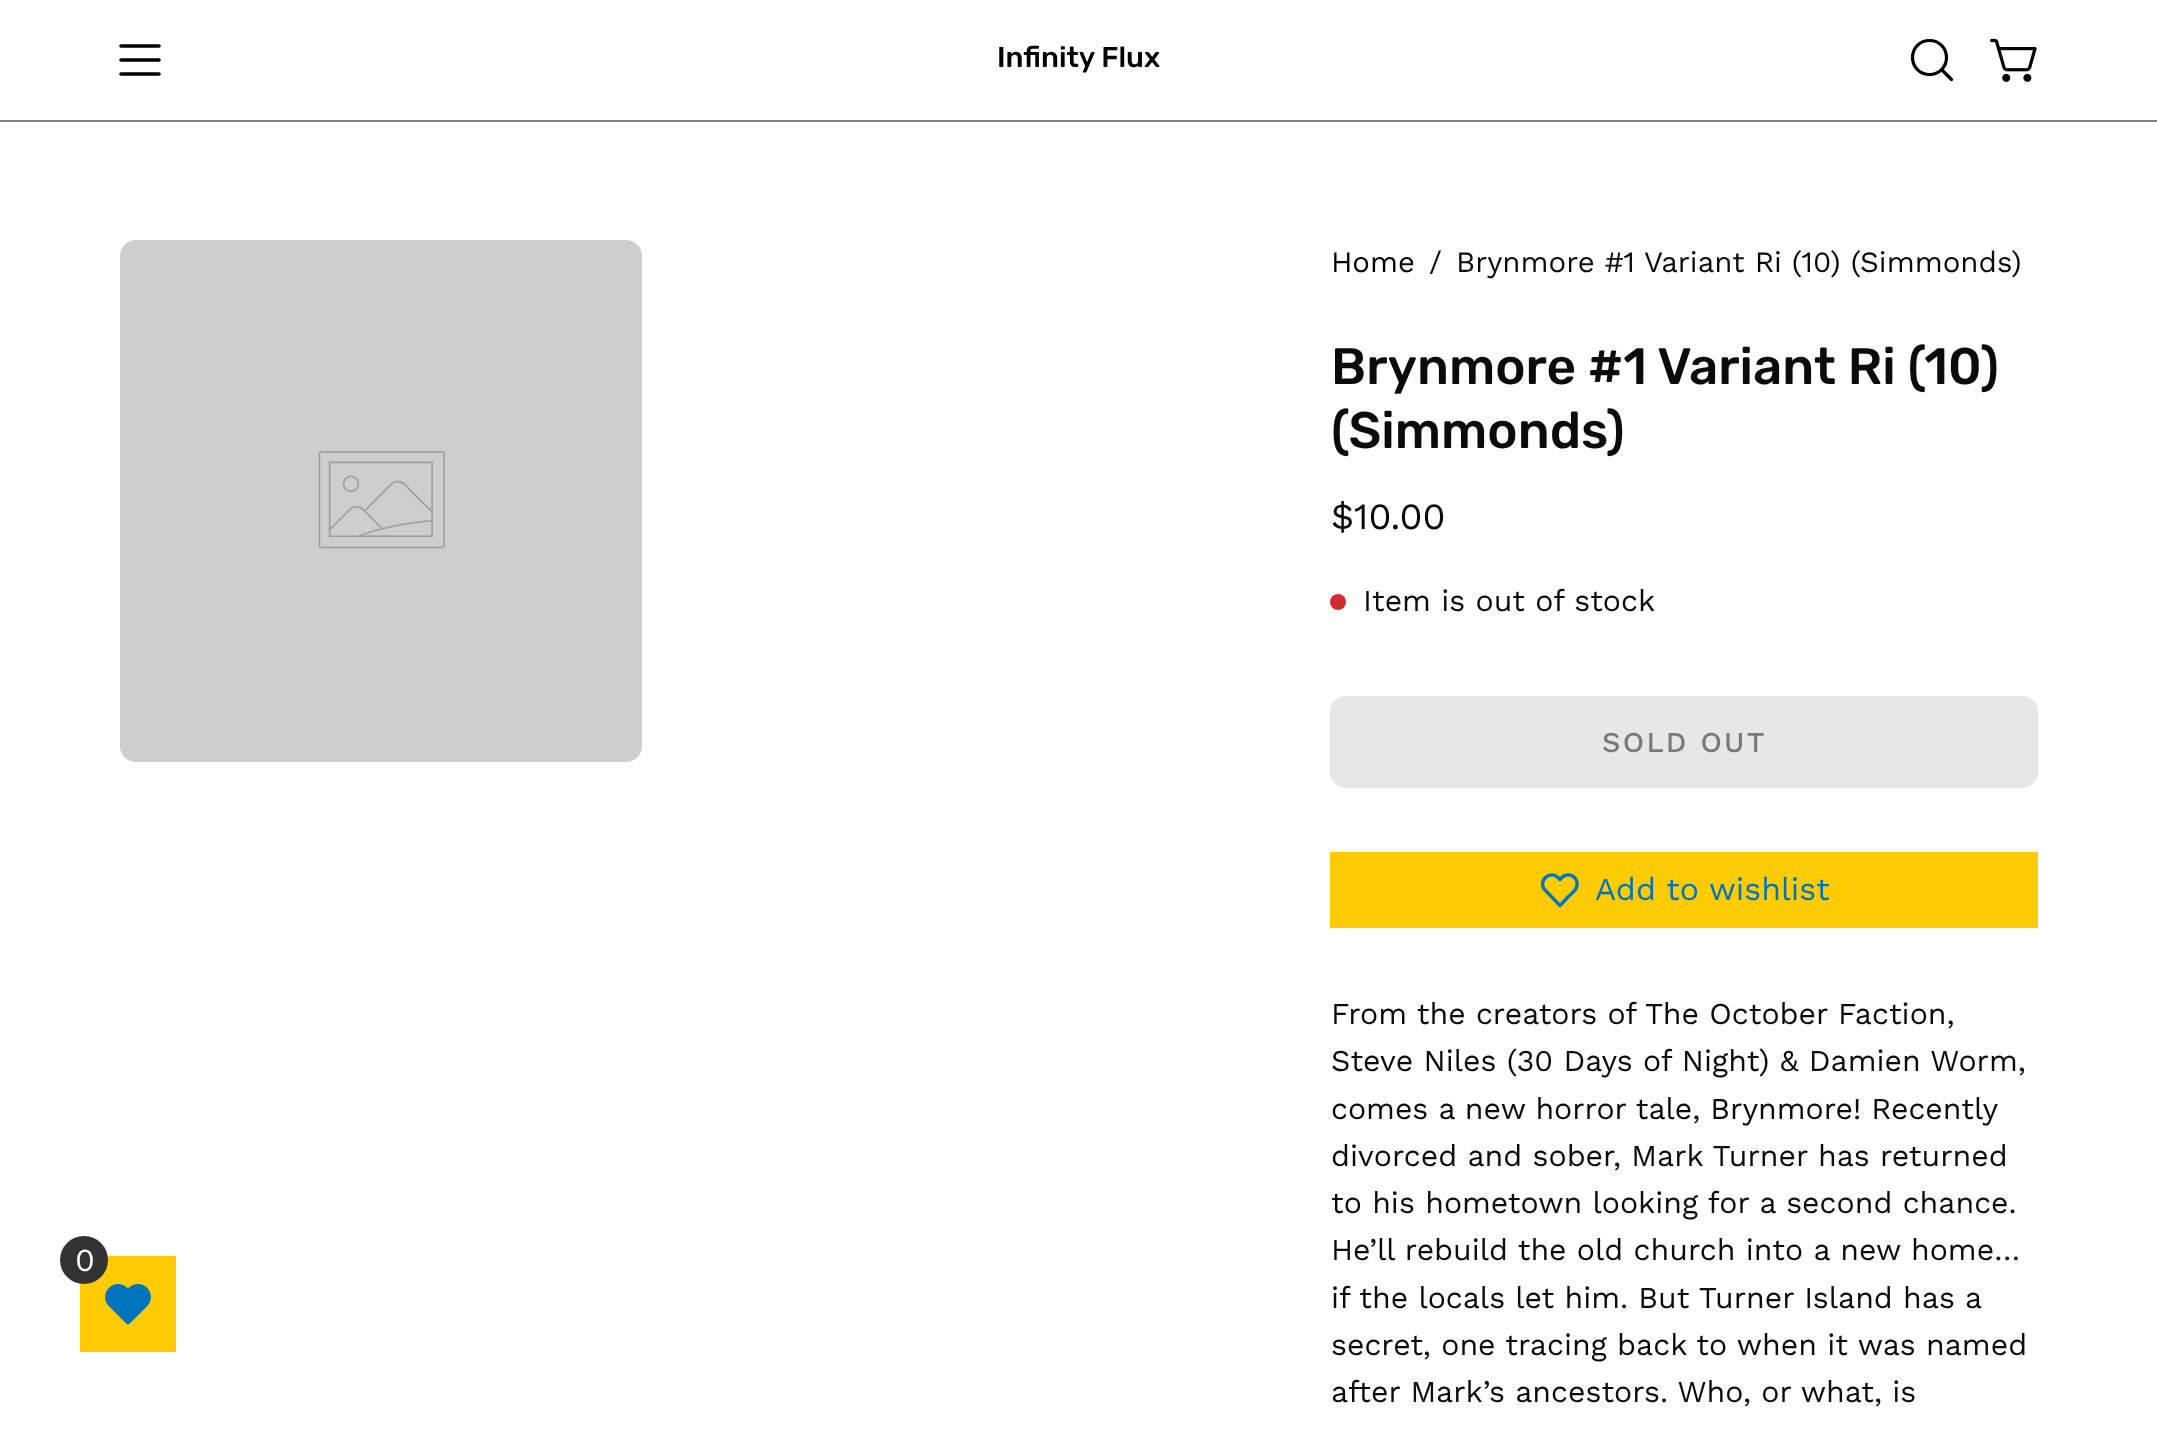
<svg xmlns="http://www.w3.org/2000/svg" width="2157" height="1432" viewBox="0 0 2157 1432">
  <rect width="100%" height="100%" fill="#fff"/>
  <path d="M121 60H159M121 46H159M121 74H159" fill="none" stroke="#000" stroke-width="3.5" stroke-linecap="round" stroke-linejoin="round"/>
  <path d="M1929.5 74.5C1939 74.5 1946.5 67 1946.5 57.5C1946.5 48 1939 40.5 1929.5 40.5C1920 40.5 1912.5 48 1912.5 57.5C1912.5 67 1920 74.5 1929.5 74.5ZM1941.5 69.5L1951.5 79.5" fill="none" stroke="#000" stroke-width="3.2" stroke-linecap="round" stroke-linejoin="round"/>
  <image x="1990" y="38" width="47" height="44" href="img/1.png"/>
  <path d="M0 120h2157v2H0z" fill="#808080"/>
  <path d="M80 1256h96v96H80z" fill="#ffcb05"/>
  <circle cx="84" cy="1260" r="24" fill="#333"/>
  <image x="105" y="1284" width="46" height="41" href="img/2.png"/>
  <rect x="120" y="240" width="522" height="522" rx="16" fill="#e6e6e6"/>
  <image x="318" y="451" width="127" height="98" href="img/3.png"/>
  <rect x="120" y="240" width="522" height="522" rx="16" fill="#0000001a"/>
  <circle cx="1338" cy="602" r="8" fill="#d02e2e"/>
  <rect x="1330" y="696" width="708" height="92" rx="16" fill="#e7e7e7"/>
  <path d="M1330 852h708v76H1330z" fill="#ffcb05"/>
  <path d="M1574.5 877.5C1571.5 874.5 1567 874 1563 876.5L1560 879.5L1558 877.5C1554.5 874 1549 874 1545.5 877.5C1541.5 881.5 1541.5 887 1545.5 890.5L1560 905.5L1568.5 896.5C1572.5 893 1578.5 888.5 1577 882.5C1577 880.5 1576 879 1574.5 877.5Z" fill="none" stroke="#0074bd" stroke-width="3.3" stroke-linecap="round" stroke-linejoin="round"/>
  <text x="997" y="67" font-family="Rubik" font-size="28.75" font-weight="500" fill="#000">Infinity Flux</text>
  <text x="75" y="1271" font-family="Work Sans" font-size="32" fill="#fff">0</text>
  <text x="1331" y="272" font-family="Work Sans" font-size="29.4" fill="#000">Home</text>
  <g font-family="Work Sans" font-size="29.4" fill="#0b0b0b">
    <text x="1429" y="272">/</text>
    <text x="1456" y="272">Brynmore #1 Variant Ri (10) (Simmonds)</text>
  </g>
  <g font-family="Rubik" font-size="51.25" font-weight="500" fill="#0b0b0b">
    <text x="1331" y="384">Brynmore #1 Variant Ri (10)</text>
    <text x="1331" y="448">(Simmonds)</text>
  </g>
  <text x="1331" y="529" font-family="Work Sans" font-size="37" fill="#0b0b0b">$10.00</text>
  <text x="1363" y="611" font-family="Work Sans" font-size="30.25" fill="#0b0b0b">Item is out of stock</text>
  <text x="1602" y="752" font-family="Work Sans" font-size="28.75" font-weight="500" letter-spacing="2.25" fill="#797979">SOLD OUT</text>
  <text x="1595" y="900" font-family="Work Sans" font-size="32" fill="#0074bd">Add to wishlist</text>
  <g font-family="Work Sans" font-size="30.25" fill="#0b0b0b">
    <text x="1331" y="1024">From the creators of</text>
    <text x="1645" y="1024">The October Faction,</text>
    <text x="1331" y="1071">Steve Niles (30 Days of Night) &amp; Damien Worm,</text>
    <text x="1331" y="1119" word-spacing="-0.25">comes a new horror tale, Brynmore! Recently</text>
    <text x="1331" y="1166">divorced and sober, Mark Turner has returned</text>
    <text x="1331" y="1213">to his hometown looking for a second chance.</text>
    <text x="1331" y="1260">He’ll rebuild the old church into a new home…</text>
    <text x="1331" y="1308" word-spacing="-0.1">if the locals let him. But Turner Island has a</text>
    <text x="1331" y="1355">secret, one tracing back to when it was named</text>
    <text x="1331" y="1402">after Mark’s ancestors. Who, or what, is</text>
  </g>
</svg>
